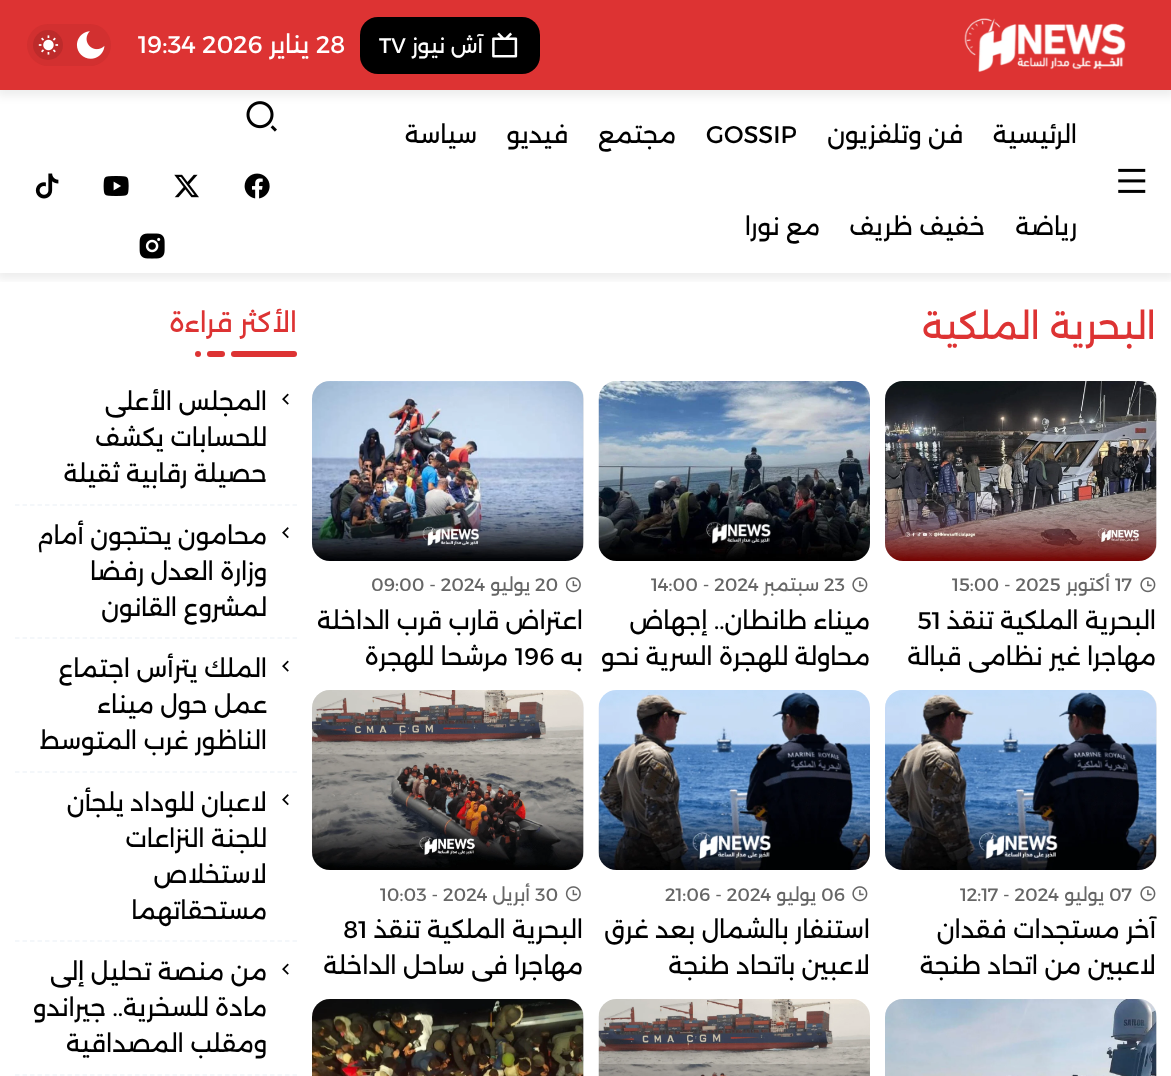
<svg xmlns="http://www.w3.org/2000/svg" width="1171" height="1076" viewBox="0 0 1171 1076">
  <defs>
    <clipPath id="clip1"><path d="M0 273h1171v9H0z"/></clipPath>
    <clipPath id="clip2"><path d="M885 603h272v72H885z"/></clipPath>
    <clipPath id="clip3"><path d="M312 912h272v72H312z"/></clipPath>
  </defs>
  <rect width="100%" height="100%" fill="#fff"/>
  <g clip-path="url(#clip1)">
    <path d="M-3 90h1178v189H-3z" fill="#00000012" filter="blur(5px)"/>
  </g>
  <image x="246" y="101" width="31" height="31" href="img/6.png"/>
  <path d="M-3 0h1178v96H-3z" fill="#00000012" filter="blur(5px)"/>
  <path d="M0 0h1171v90H0z" fill="#d33"/>
  <image x="964" y="18" width="162" height="54" href="img/1.png"/>
  <rect x="360" y="17" width="180" height="57" rx="18" fill="#000"/>
  <image x="492" y="32" width="26" height="26" href="img/2.png"/>
  <rect x="27" y="24" width="84" height="42" rx="21" fill="#d23030"/>
  <image x="76" y="31" width="29" height="28" href="img/3.png"/>
  <circle cx="48" cy="45" r="15" fill="#bd2b2b"/>
  <image x="38" y="35" width="21" height="20" href="img/4.png"/>
  <image x="1118" y="168" width="28" height="25" href="img/5.png"/>
  <image x="244" y="173" width="26" height="26" href="img/7.png"/>
  <image x="174" y="174" width="25" height="24" href="img/8.png"/>
  <image x="103" y="176" width="26" height="20" href="img/9.png"/>
  <image x="35" y="173" width="24" height="26" href="img/10.png"/>
  <image x="139" y="233" width="26" height="26" href="img/11.png"/>
  <rect x="885" y="381" width="272" height="180" rx="18" fill="#eee"/>
  <image x="885" y="381" width="272" height="180" href="img/12.png"/>
  <image x="1140" y="577" width="16" height="16" href="img/13.png"/>
  <image x="598" y="381" width="272" height="180" href="img/14.png"/>
  <image x="852" y="577" width="16" height="16" href="img/13.png"/>
  <rect x="312" y="381" width="272" height="180" rx="18" fill="#eee"/>
  <image x="312" y="381" width="272" height="180" href="img/15.png"/>
  <image x="565" y="577" width="16" height="16" href="img/16.png"/>
  <rect x="885" y="690" width="272" height="180" rx="18" fill="#eee"/>
  <image x="885" y="690" width="272" height="180" href="img/17.png"/>
  <image x="1140" y="886" width="16" height="16" href="img/13.png"/>
  <image x="598" y="690" width="272" height="180" href="img/18.png"/>
  <image x="852" y="886" width="16" height="16" href="img/13.png"/>
  <rect x="312" y="690" width="272" height="180" rx="18" fill="#eee"/>
  <image x="312" y="690" width="272" height="180" href="img/19.png"/>
  <image x="565" y="886" width="16" height="16" href="img/16.png"/>
  <rect x="885" y="999" width="272" height="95" rx="18" fill="#eee"/>
  <image x="885" y="999" width="272" height="77" href="img/20.png"/>
  <image x="598" y="999" width="272" height="77" href="img/21.png"/>
  <rect x="312" y="999" width="272" height="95" rx="18" fill="#eee"/>
  <image x="312" y="999" width="272" height="77" href="img/22.png"/>
  <rect x="207" y="351" width="18" height="6" rx="3" fill="#d33"/>
  <circle cx="198" cy="354" r="3" fill="#d33"/>
  <rect x="231" y="351" width="66" height="6" rx="3" fill="#d33"/>
  <path d="M15 505H297" fill="none" stroke="#f1f5f9" stroke-width="1.5" stroke-dasharray="4.5 3"/>
  <image x="282" y="393" width="7" height="12" href="img/23.png"/>
  <path d="M15 638H297" fill="none" stroke="#f1f5f9" stroke-width="1.5" stroke-dasharray="4.5 3"/>
  <image x="282" y="527" width="7" height="12" href="img/24.png"/>
  <path d="M15 772H297" fill="none" stroke="#f1f5f9" stroke-width="1.5" stroke-dasharray="4.5 3"/>
  <image x="282" y="660" width="7" height="12" href="img/23.png"/>
  <path d="M15 941H297" fill="none" stroke="#f1f5f9" stroke-width="1.5" stroke-dasharray="4.5 3"/>
  <image x="282" y="794" width="7" height="12" href="img/24.png"/>
  <path d="M15 1075H297" fill="none" stroke="#f1f5f9" stroke-width="1.5" stroke-dasharray="4.5 3"/>
  <image x="282" y="963" width="7" height="12" href="img/23.png"/>
  <text x="483" y="53" font-family="Alexandria" font-size="21" direction="rtl" fill="#fff">آش نيوز</text>
  <text x="379" y="53" font-family="Alexandria" font-size="21" fill="#fff">TV</text>
  <text x="316" y="53" font-family="Alexandria" font-size="24" fill="#fff">28</text>
  <text x="309" y="53" font-family="Alexandria" font-size="24" direction="rtl" fill="#fff">يناير</text>
  <text x="138" y="53" font-family="Alexandria" font-size="24" fill="#fff">19:34 2026</text>
  <g font-family="Alexandria" font-size="24" direction="rtl" fill="#000">
    <text x="1077" y="143">الرئيسية</text>
    <text x="963" y="143">فن وتلفزيون</text>
  </g>
  <text x="706" y="143" font-family="Alexandria" font-size="24" fill="#000">GOSSIP</text>
  <g font-family="Alexandria" font-size="24" direction="rtl" fill="#000">
    <text x="676" y="143">مجتمع</text>
    <text x="568" y="143">فيديو</text>
    <text x="477" y="143">سياسة</text>
    <text x="1077" y="235">رياضة</text>
    <text x="985" y="235">خفيف ظريف</text>
    <text x="820" y="235">مع نورا</text>
  </g>
  <text x="1156" y="339" font-family="Alexandria" font-size="36" direction="rtl" fill="#d33">البحرية الملكية</text>
  <text x="1115" y="591" font-family="Alexandria" font-size="18" fill="#666">17</text>
  <text x="1110" y="591" font-family="Alexandria" font-size="18" direction="rtl" fill="#666">أكتوبر</text>
  <text x="952" y="591" font-family="Alexandria" font-size="18" fill="#666">15:00 - 2025</text>
  <text x="1156" y="629" font-family="Alexandria" font-size="24" direction="rtl" fill="#000">البحرية الملكية تنقذ</text>
  <text x="917" y="629" font-family="Alexandria" font-size="24" fill="#000">51</text>
  <g clip-path="url(#clip2)">
    <text x="1156" y="665" font-family="Alexandria" font-size="24" direction="rtl" fill="#000">مهاجرا غير نظامي قبالة</text>
  </g>
  <text x="824" y="591" font-family="Alexandria" font-size="18" fill="#666">23</text>
  <text x="819" y="591" font-family="Alexandria" font-size="18" direction="rtl" fill="#666">سبتمبر</text>
  <text x="651" y="591" font-family="Alexandria" font-size="18" fill="#666">14:00 - 2024</text>
  <g font-family="Alexandria" font-size="24" direction="rtl" fill="#000">
    <text x="870" y="629">ميناء طانطان.. إجهاض</text>
    <text x="870" y="665">محاولة للهجرة السرية نحو</text>
  </g>
  <text x="535" y="591" font-family="Alexandria" font-size="18" fill="#666">20</text>
  <text x="530" y="591" font-family="Alexandria" font-size="18" direction="rtl" fill="#666">يوليو</text>
  <text x="371" y="591" font-family="Alexandria" font-size="18" fill="#666">09:00 - 2024</text>
  <g font-family="Alexandria" font-size="24" direction="rtl" fill="#000">
    <text x="583" y="629">اعتراض قارب قرب الداخلة</text>
    <text x="583" y="665">به</text>
  </g>
  <text x="515" y="665" font-family="Alexandria" font-size="24" fill="#000">196</text>
  <text x="508" y="665" font-family="Alexandria" font-size="24" direction="rtl" fill="#000">مرشحا للهجرة</text>
  <text x="1109" y="901" font-family="Alexandria" font-size="18" fill="#666">07</text>
  <text x="1104" y="901" font-family="Alexandria" font-size="18" direction="rtl" fill="#666">يوليو</text>
  <text x="960" y="901" font-family="Alexandria" font-size="18" fill="#666">12:17 - 2024</text>
  <g font-family="Alexandria" font-size="24" direction="rtl" fill="#000">
    <text x="1156" y="938">آخر مستجدات فقدان</text>
    <text x="1156" y="974">لاعبين من اتحاد طنجة</text>
  </g>
  <text x="821" y="901" font-family="Alexandria" font-size="18" fill="#666">06</text>
  <text x="816" y="901" font-family="Alexandria" font-size="18" direction="rtl" fill="#666">يوليو</text>
  <text x="665" y="901" font-family="Alexandria" font-size="18" fill="#666">21:06 - 2024</text>
  <g font-family="Alexandria" font-size="24" direction="rtl" fill="#000">
    <text x="870" y="938">استنفار بالشمال بعد غرق</text>
    <text x="870" y="974">لاعبين باتحاد طنجة</text>
  </g>
  <text x="535" y="901" font-family="Alexandria" font-size="18" fill="#666">30</text>
  <text x="530" y="901" font-family="Alexandria" font-size="18" direction="rtl" fill="#666">أبريل</text>
  <text x="380" y="901" font-family="Alexandria" font-size="18" fill="#666">10:03 - 2024</text>
  <text x="583" y="938" font-family="Alexandria" font-size="24" direction="rtl" fill="#000">البحرية الملكية تنقذ</text>
  <text x="343" y="938" font-family="Alexandria" font-size="24" fill="#000">81</text>
  <g clip-path="url(#clip3)">
    <text x="583" y="974" font-family="Alexandria" font-size="24" direction="rtl" fill="#000">مهاجرا في ساحل الداخلة</text>
  </g>
  <text x="297" y="332" font-family="Alexandria" font-size="26.5" direction="rtl" fill="#d33">الأكثر قراءة</text>
  <g font-family="Alexandria" font-size="24" direction="rtl" fill="#000">
    <text x="267" y="410">المجلس الأعلى</text>
    <text x="267" y="446">للحسابات يكشف</text>
    <text x="267" y="482">حصيلة رقابية ثقيلة</text>
    <text x="267" y="544">محامون يحتجون أمام</text>
    <text x="267" y="580">وزارة العدل رفضا</text>
    <text x="267" y="616">لمشروع القانون</text>
    <text x="267" y="677">الملك يترأس اجتماع</text>
    <text x="267" y="713">عمل حول ميناء</text>
    <text x="267" y="749">الناظور غرب المتوسط</text>
    <text x="267" y="811">لاعبان للوداد يلجأن</text>
    <text x="267" y="847">للجنة النزاعات</text>
    <text x="267" y="883">لاستخلاص</text>
    <text x="267" y="919">مستحقاتهما</text>
    <text x="267" y="980">من منصة تحليل إلى</text>
    <text x="267" y="1016">مادة للسخرية.. جيراندو</text>
    <text x="267" y="1052">ومقلب المصداقية</text>
  </g>
</svg>
